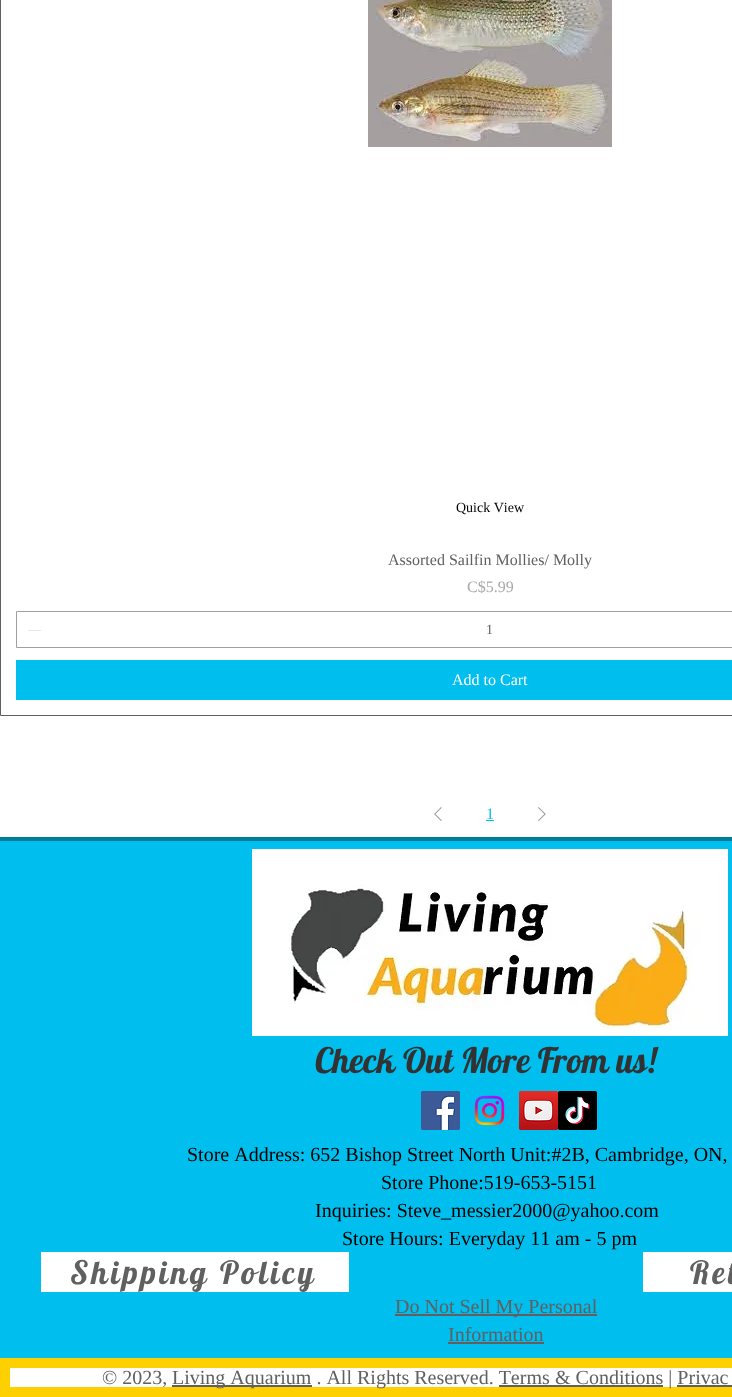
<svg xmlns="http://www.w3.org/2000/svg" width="732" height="1397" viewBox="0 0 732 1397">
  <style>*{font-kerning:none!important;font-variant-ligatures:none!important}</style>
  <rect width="100%" height="100%" fill="#007b9a"/>
  <path d="M0 0h732v837H0z" fill="#fff"/>
  <path d="M0.5 -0.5h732v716H0.5z" fill="none" stroke="#606060"/>
  <image x="368" y="0" width="244" height="147" href="img/1.png"/>
  <path d="M16.5 611.5h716v36H16.5z" fill="none" stroke="#a0a0a0"/>
  <path d="M28 630h13v1H28z" fill="#e7e7e7"/>
  <path d="M16 660h716v40H16z" fill="#00beed"/>
  <image x="434" y="807" width="8" height="14" href="img/2.png"/>
  <path d="M486 820h8v1H486z" fill="#00beed"/>
  <image x="538" y="807" width="8" height="14" href="img/3.png"/>
  <path d="M0 841h732v517H0z" fill="#00beed"/>
  <image x="252" y="849" width="476" height="187" href="img/4.png"/>
  <image x="421" y="1091" width="39" height="39" href="img/5.png"/>
  <image x="474" y="1095" width="31" height="31" href="img/6.png"/>
  <image x="519" y="1091" width="39" height="39" href="img/7.png"/>
  <image x="558" y="1091" width="39" height="39" href="img/8.png"/>
  <path d="M41 1252h308v40H41z" fill="#fff"/>
  <path d="M643 1252h89v40H643z" fill="#fff"/>
  <path d="M395 1314h202v2H395z" fill="#606060"/>
  <path d="M448 1342h96v2H448z" fill="#606060"/>
  <path d="M5 1363h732v29H5z" fill="#fff" stroke="#ffd000" stroke-width="10"/>
  <path d="M172 1385h140v2H172z" fill="#606060"/>
  <path d="M499 1385h164v2H499z" fill="#606060"/>
  <path d="M677 1385h55v2H677z" fill="#606060"/>
  <text x="456" y="512" font-family="Liberation Serif" font-size="14" fill="#000">Quick View</text>
  <text x="388" y="565" font-family="Liberation Serif" font-size="16" fill="#606060">Assorted Sailfin Mollies/ Molly</text>
  <text x="467" y="592" font-family="Liberation Serif" font-size="16" fill="#a8a8a8">C$5.99</text>
  <text x="486" y="634" font-family="Liberation Serif" font-size="14" fill="#606060">1</text>
  <text x="452" y="685" font-family="Liberation Serif" font-size="16" fill="#fff">Add to Cart</text>
  <text x="486" y="819" font-family="Liberation Serif" font-size="16" fill="#00beed">1</text>
  <text x="315" y="1073" font-family="Lobster" font-size="35" fill="#323232">Check Out More From us!</text>
  <g font-family="Liberation Serif" font-size="20" fill="#000">
    <text x="187" y="1161">Store Address: 652 Bishop Street North Unit:#2B, Cambridge, ON,</text>
    <text x="381" y="1189">Store Phone:519-653-5151</text>
    <text x="315" y="1217">Inquiries: Steve_messier2000@yahoo.com</text>
    <text x="342" y="1245">Store Hours: Everyday 11 am - 5 pm</text>
  </g>
  <g font-family="Lobster" font-size="32" letter-spacing="3.25" fill="#606060">
    <text x="70" y="1284">Shipping Policy</text>
    <text x="690" y="1284">Ret</text>
  </g>
  <g font-family="Liberation Serif" font-size="20" fill="#606060">
    <text x="395" y="1313">Do Not Sell My Personal</text>
    <text x="448" y="1341">Information</text>
    <text x="102" y="1384">© 2023,</text>
    <text x="172" y="1384">Living Aquarium . All Rights Reserved. Terms</text>
    <text x="555" y="1384">&amp; Conditions | Privac</text>
  </g>
</svg>
